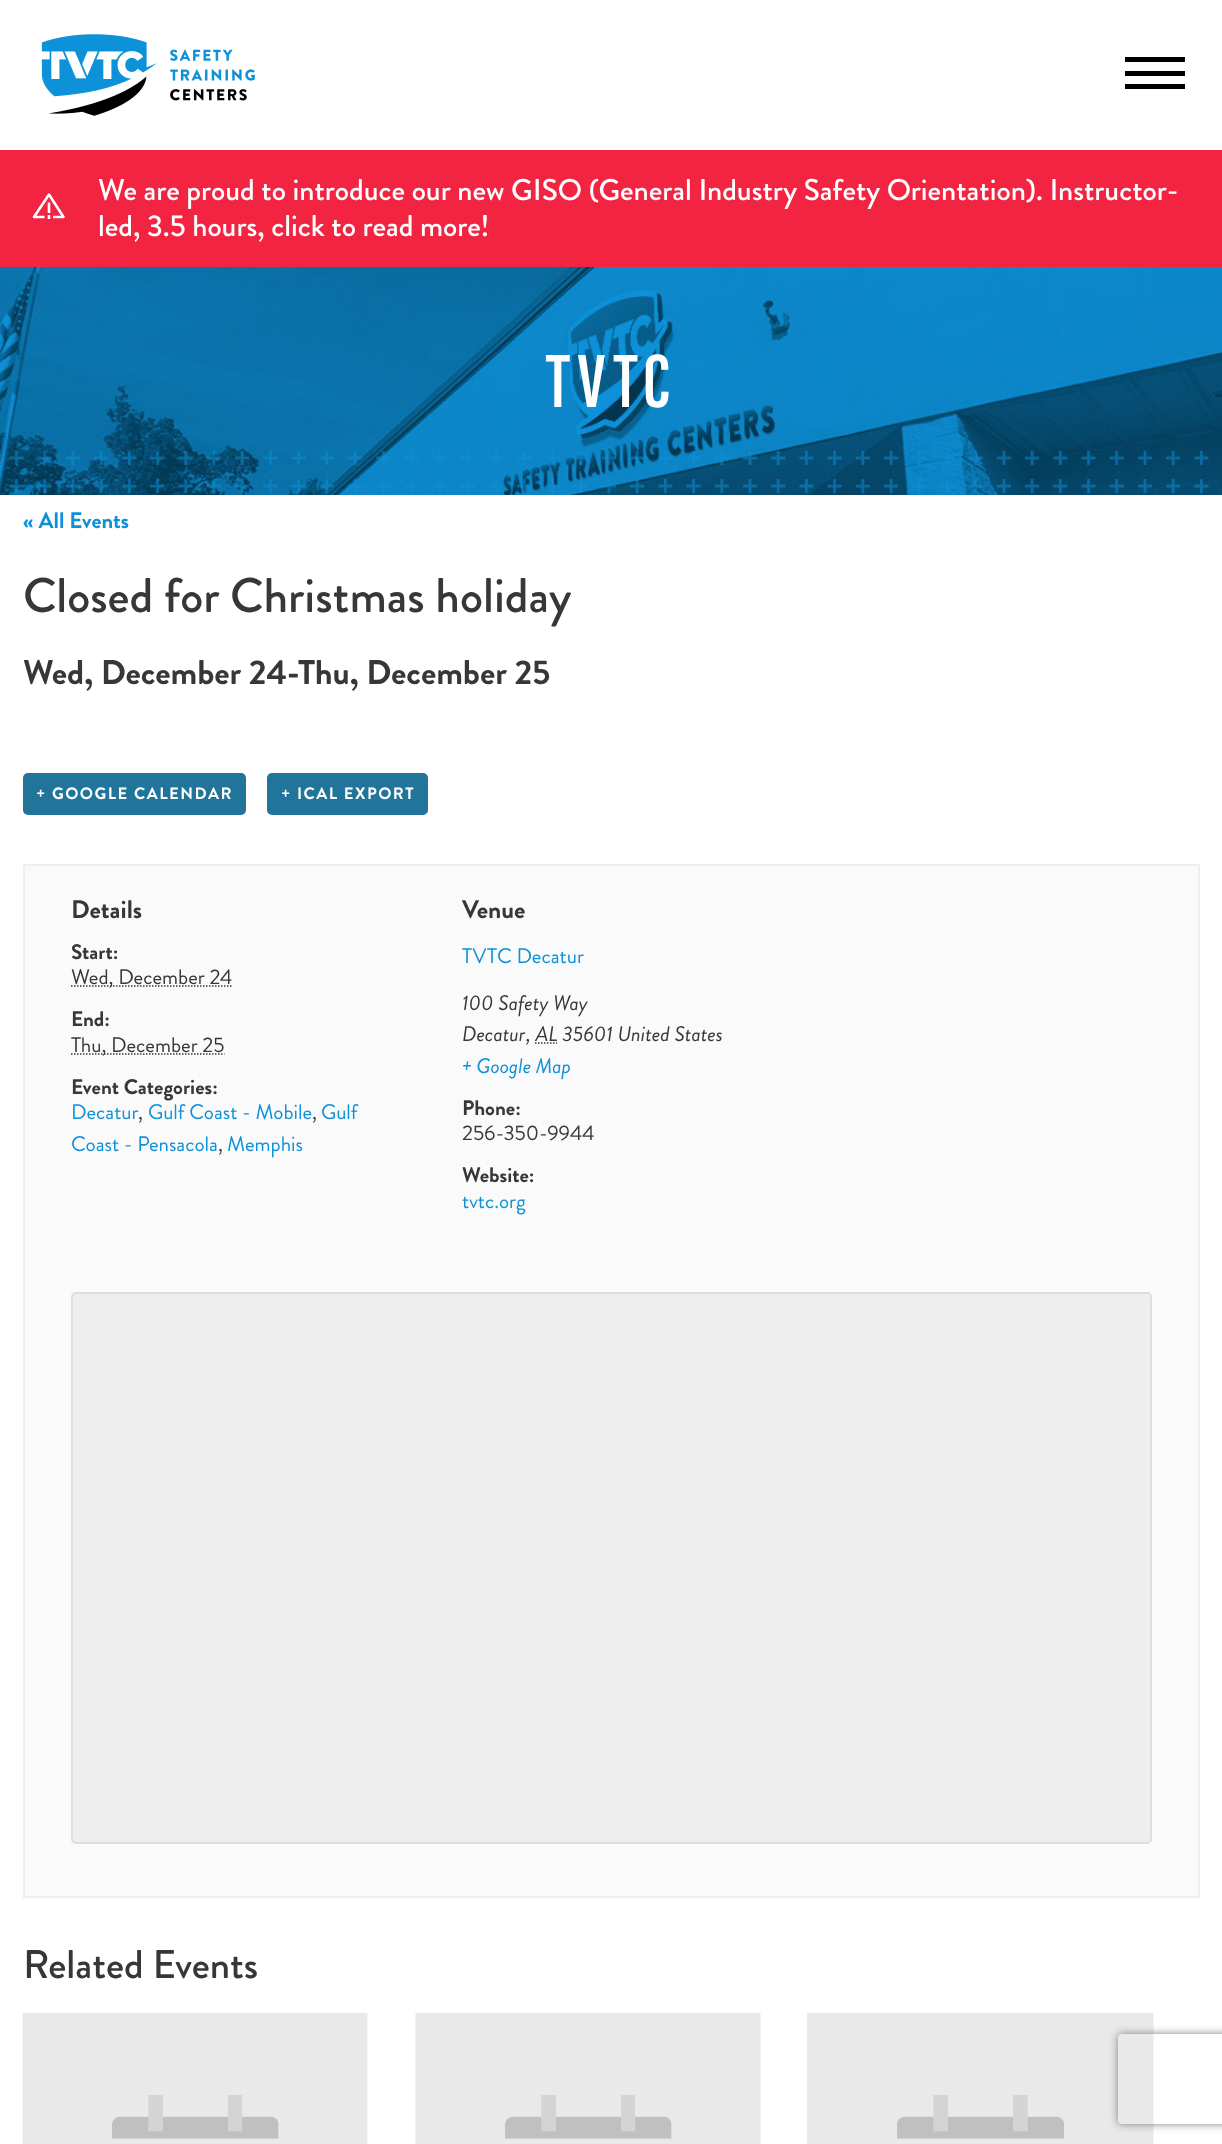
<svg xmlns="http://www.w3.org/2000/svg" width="1222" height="2144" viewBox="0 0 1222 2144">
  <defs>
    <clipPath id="clip1"><path d="M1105 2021H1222V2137H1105ZM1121 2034H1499C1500.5 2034 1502 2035.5 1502 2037V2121C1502 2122.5 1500.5 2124 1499 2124H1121C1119.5 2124 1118 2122.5 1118 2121V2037C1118 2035.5 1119.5 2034 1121 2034Z" clip-rule="evenodd"/></clipPath>
  </defs>
  <rect width="100%" height="100%" fill="#fff"/>
  <image x="41" y="34" width="214" height="82" href="img/1.png"/>
  <path d="M1125 57h60v5H1125z" fill="#000"/>
  <path d="M1125 71h60v5H1125z" fill="#000"/>
  <path d="M1125 84h60v5H1125z" fill="#000"/>
  <path d="M0 150h1222v117H0z" fill="#f22441"/>
  <path d="M44.5 217H34L49 194.5L63.5 217H53" fill="none" stroke="#fff" stroke-width="2.6" stroke-linejoin="round"/>
  <path d="M49 202.5V213M49 215V219" fill="none" stroke="#fff" stroke-width="2.6"/>
  <image x="0" y="267" width="1222" height="228" href="img/2.png"/>
  <rect x="23" y="773" width="223" height="42" rx="5" fill="#21759b"/>
  <rect x="267" y="773" width="161" height="42" rx="5" fill="#21759b"/>
  <path d="M24 865h1175v1032H24z" fill="#fafafa" stroke="#eee" stroke-width="2"/>
  <path d="M71 986H232.5" fill="none" stroke="#353738" stroke-width="1.5" stroke-dasharray="1.5 1.5"/>
  <path d="M71 1054H224.5" fill="none" stroke="#353738" stroke-width="1.5" stroke-dasharray="1.5 1.5"/>
  <path d="M535 1043H557" fill="none" stroke="#353738" stroke-width="1.5" stroke-dasharray="1.5 1.5"/>
  <rect x="72" y="1293" width="1079" height="550" rx="4" fill="#eee" stroke="#ddd" stroke-width="2"/>
  <image x="22" y="2013" width="346" height="131" href="img/3.png"/>
  <image x="415" y="2013" width="346" height="131" href="img/3.png"/>
  <image x="807" y="2013" width="347" height="131" href="img/4.png"/>
  <g clip-path="url(#clip1)">
    <rect x="1118" y="2034" width="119" height="90" rx="3" fill="#808080" filter="blur(4px)"/>
  </g>
  <g font-family="Brandon Grotesque" font-size="30" font-weight="500" fill="#fff">
    <text x="98" y="200">We are proud to introduce our new GISO (General Industry Safety Orientation). Instructor-</text>
    <text x="98" y="236">led, 3.5 hours, click to read more!</text>
  </g>
  <text x="546" y="407" font-family="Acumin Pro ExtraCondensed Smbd" font-size="78" font-weight="600" letter-spacing="6" fill="#fff">TVTC</text>
  <text x="23" y="528" font-family="Brandon Grotesque" font-size="22.5" font-weight="bold" fill="#0d91d8">« All Events</text>
  <text x="23" y="612" font-family="Brandon Grotesque" font-size="48.5" font-weight="500" fill="#353738">Closed for Christmas holiday</text>
  <g font-family="Brandon Grotesque" font-size="34.25" font-weight="bold" fill="#353738">
    <text x="23" y="684">Wed, December 24-</text>
    <text x="298" y="684">Thu, December 25</text>
  </g>
  <g font-family="Brandon Grotesque" font-size="16.5" font-weight="bold" letter-spacing="1.5" fill="#fff">
    <text x="36" y="799">+ GOOGLE CALENDAR</text>
    <text x="281" y="799">+ ICAL EXPORT</text>
  </g>
  <text x="71" y="918" font-family="Brandon Grotesque" font-size="25.5" font-weight="bold" fill="#353738">Details</text>
  <text x="71" y="959" font-family="Brandon Grotesque" font-size="21" font-weight="bold" fill="#353738">Start:</text>
  <text x="71" y="984" font-family="Brandon Grotesque" font-size="21" fill="#353738">Wed, December 24</text>
  <text x="71" y="1026" font-family="Brandon Grotesque" font-size="21" font-weight="bold" fill="#353738">End:</text>
  <text x="71" y="1052" font-family="Brandon Grotesque" font-size="21" fill="#353738">Thu, December 25</text>
  <text x="71" y="1094" font-family="Brandon Grotesque" font-size="21" font-weight="bold" fill="#353738">Event Categories:</text>
  <text x="71" y="1119" font-family="Brandon Grotesque" font-size="21" fill="#0d91d8">Decatur</text>
  <text x="138" y="1119" font-family="Brandon Grotesque" font-size="21" fill="#353738">,</text>
  <text x="148" y="1119" font-family="Brandon Grotesque" font-size="21" fill="#0d91d8">Gulf Coast - Mobile</text>
  <text x="312" y="1119" font-family="Brandon Grotesque" font-size="21" fill="#353738">,</text>
  <g font-family="Brandon Grotesque" font-size="21" fill="#0d91d8">
    <text x="321" y="1119">Gulf</text>
    <text x="71" y="1151">Coast - Pensacola</text>
  </g>
  <text x="218" y="1151" font-family="Brandon Grotesque" font-size="21" fill="#353738">,</text>
  <text x="227" y="1151" font-family="Brandon Grotesque" font-size="21" fill="#0d91d8">Memphis</text>
  <text x="462" y="918" font-family="Brandon Grotesque" font-size="25.5" font-weight="bold" fill="#353738">Venue</text>
  <text x="462" y="963" font-family="Brandon Grotesque" font-size="21" fill="#0d91d8">TVTC Decatur</text>
  <g font-family="Brandon Grotesque" font-size="21" font-style="italic" fill="#353738">
    <text x="462" y="1010">100 Safety Way</text>
    <text x="462" y="1041">Decatur</text>
    <text x="526" y="1041">, AL 35601 United States</text>
  </g>
  <text x="462" y="1073" font-family="Brandon Grotesque" font-size="21" font-style="italic" fill="#0d91d8">+ Google Map</text>
  <text x="462" y="1115" font-family="Brandon Grotesque" font-size="21" font-weight="bold" fill="#353738">Phone:</text>
  <text x="462" y="1140" font-family="Brandon Grotesque" font-size="21" fill="#353738">256-350-9944</text>
  <text x="462" y="1182" font-family="Brandon Grotesque" font-size="21" font-weight="bold" fill="#353738">Website:</text>
  <text x="462" y="1208" font-family="Brandon Grotesque" font-size="21" fill="#0d91d8">tvtc.org</text>
  <text x="23" y="1978" font-family="Brandon Grotesque" font-size="40" font-weight="500" fill="#353738">Related Events</text>
</svg>
